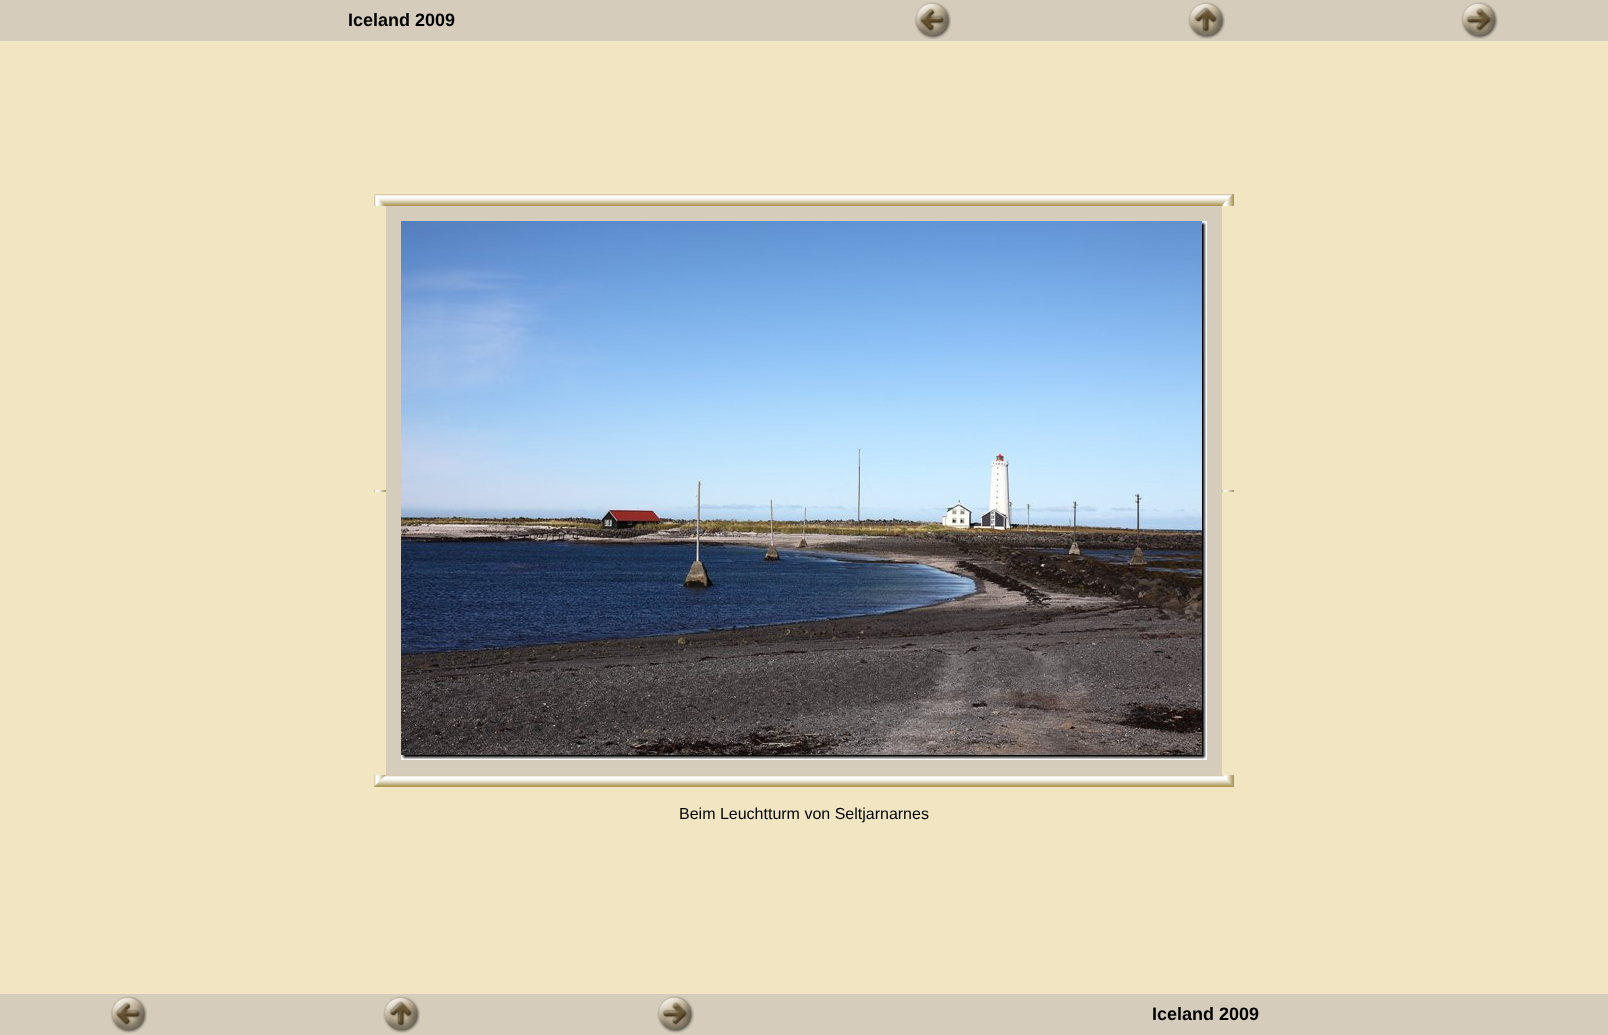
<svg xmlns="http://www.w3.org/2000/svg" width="1608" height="1035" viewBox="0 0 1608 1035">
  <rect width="100%" height="100%" fill="#f2e6c2"/>
  <path d="M0 0h1608v41H0z" fill="#d5ccbb"/>
  <image x="914" y="2" width="37" height="37" href="img/1.png"/>
  <image x="1188" y="2" width="37" height="37" href="img/2.png"/>
  <image x="1461" y="2" width="37" height="37" href="img/3.png"/>
  <image x="374" y="194" width="12" height="12" href="img/4.png"/>
  <image x="386" y="194" width="836" height="12" href="img/5.png"/>
  <image x="1222" y="194" width="12" height="12" href="img/6.png"/>
  <image x="374" y="490" width="12" height="2" href="img/7.png"/>
  <path d="M386 206h836v569H386z" fill="#d5ccbb"/>
  <image x="401" y="221" width="806" height="539" href="img/8.png"/>
  <image x="1222" y="490" width="12" height="2" href="img/9.png"/>
  <image x="374" y="775" width="12" height="12" href="img/10.png"/>
  <image x="386" y="775" width="836" height="12" href="img/11.png"/>
  <image x="1222" y="775" width="12" height="12" href="img/12.png"/>
  <path d="M0 994h1608v41H0z" fill="#d5ccbb"/>
  <image x="110" y="996" width="37" height="37" href="img/1.png"/>
  <image x="383" y="996" width="37" height="37" href="img/2.png"/>
  <image x="657" y="996" width="37" height="37" href="img/3.png"/>
  <text x="348" y="26" font-family="Liberation Sans" font-size="18" font-weight="bold" fill="#000">Iceland 2009</text>
  <text x="679" y="819" font-family="Liberation Sans" font-size="16" fill="#000">Beim Leuchtturm von Seltjarnarnes</text>
  <text x="1152" y="1020" font-family="Liberation Sans" font-size="18" font-weight="bold" fill="#000">Iceland 2009</text>
</svg>
